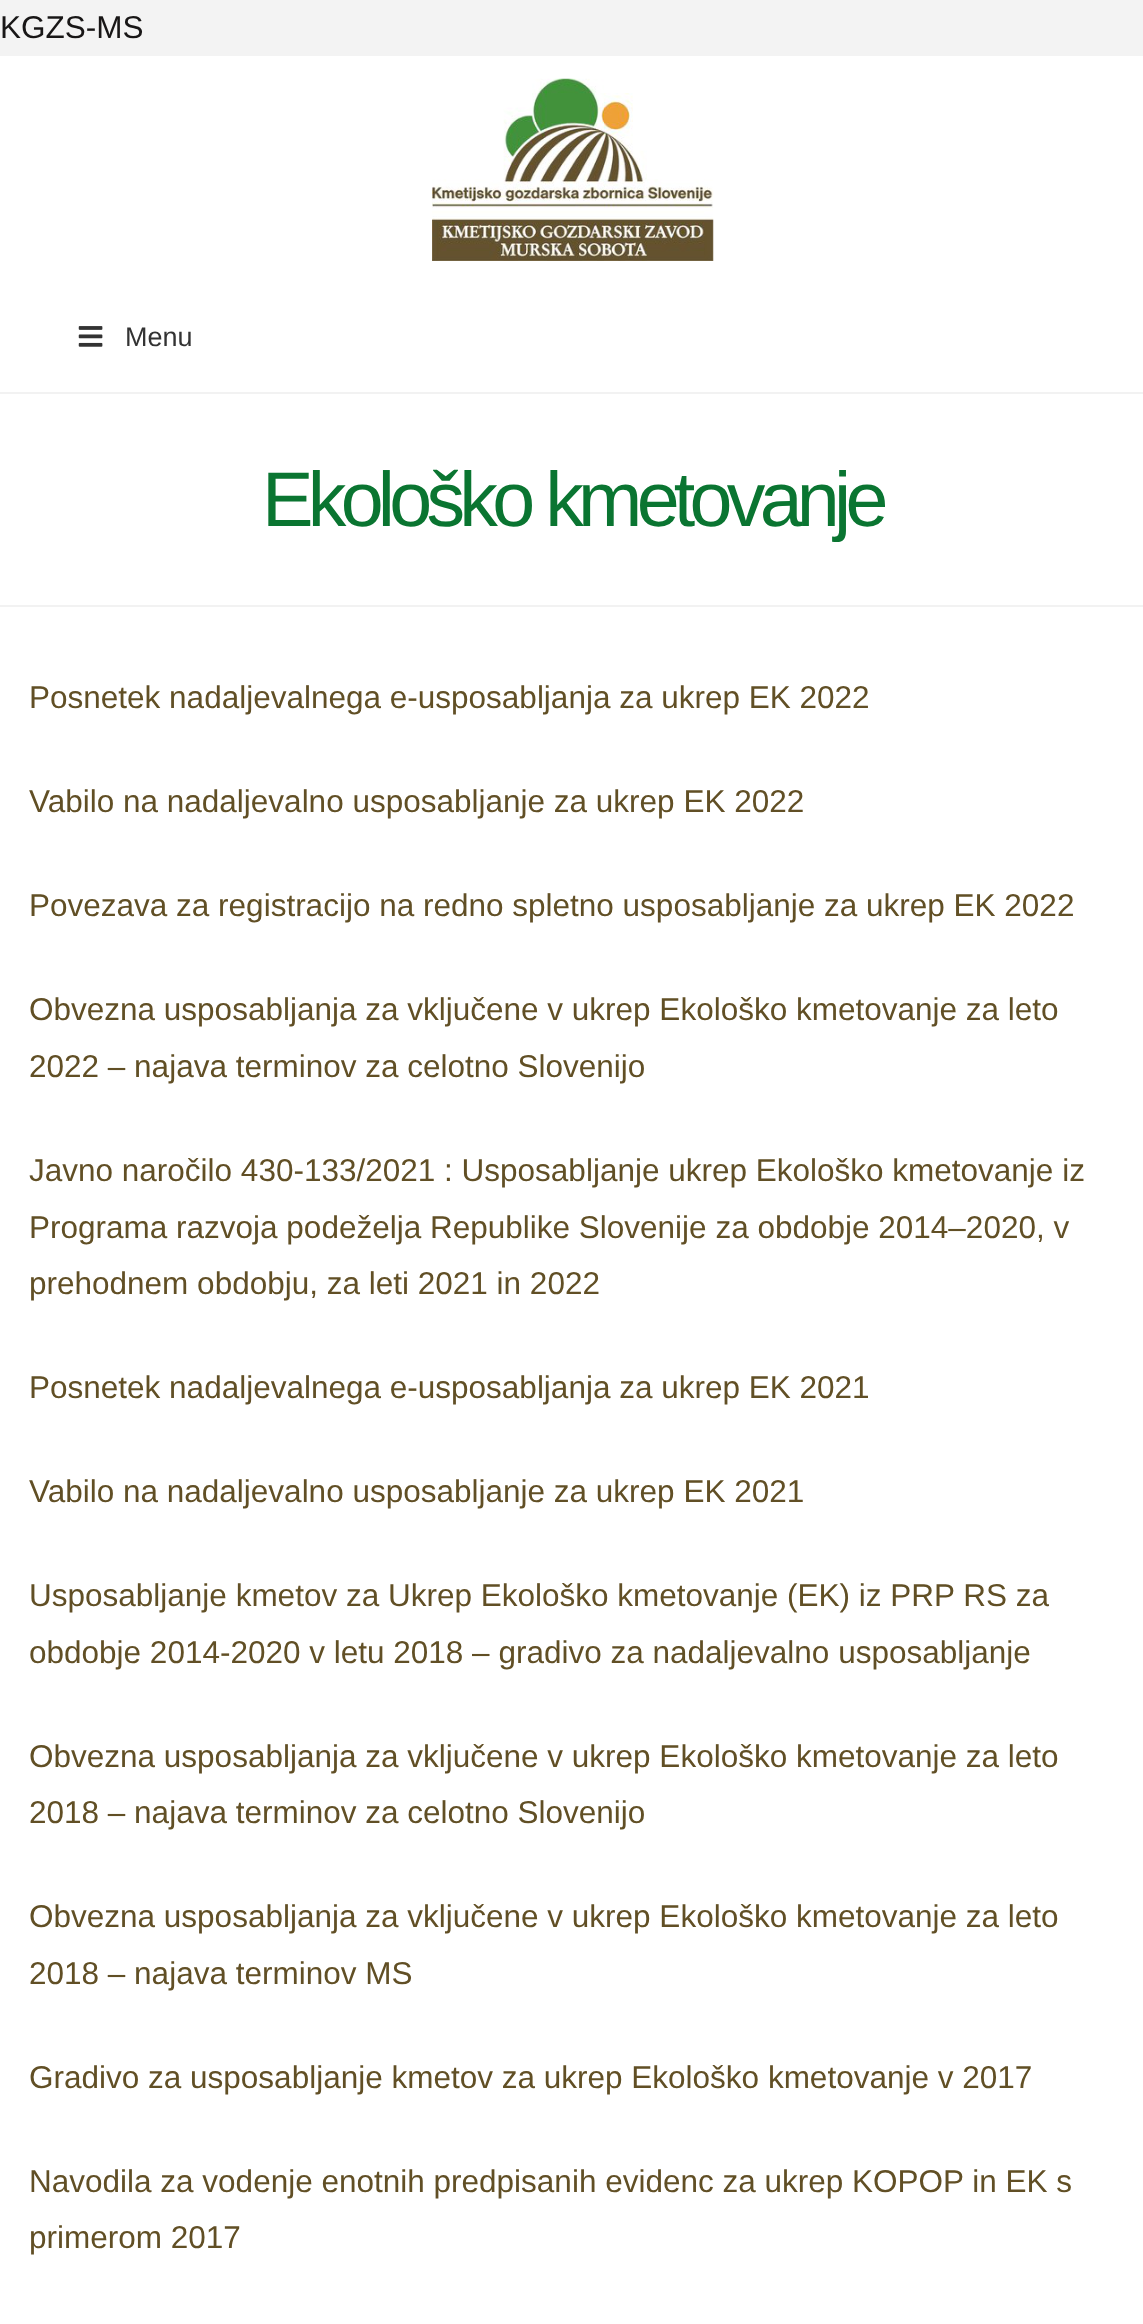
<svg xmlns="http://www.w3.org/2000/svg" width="1143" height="2324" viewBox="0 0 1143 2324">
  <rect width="100%" height="100%" fill="#f3f3f3"/>
  <path d="M0 56h1143v2268H0z" fill="#fff"/>
  <image x="432" y="78" width="282" height="183" href="img/1.png"/>
  <image x="78" y="326" width="25" height="21" href="img/2.png"/>
  <path d="M0 392h1143v2H0z" fill="#f2f2f2"/>
  <path d="M0 605h1143v2H0z" fill="#f2f2f2"/>
  <text x="0" y="38" font-family="Liberation Sans" font-size="31.5" fill="#181616">KGZS-MS</text>
  <text x="125" y="346" font-family="Liberation Sans" font-size="27" fill="#333">Menu</text>
  <text x="262" y="526" font-family="Liberation Sans" font-size="77.25" letter-spacing="-5.75" fill="#0a7531">Ekološko kmetovanje</text>
  <g font-family="Liberation Sans" font-size="31.5" fill="#614f25">
    <text x="29" y="708">Posnetek nadaljevalnega e-usposabljanja za ukrep EK 2022</text>
    <text x="29" y="812">Vabilo na nadaljevalno usposabljanje za ukrep EK 2022</text>
    <text x="29" y="916">Povezava za registracijo na redno spletno usposabljanje za ukrep EK 2022</text>
    <text x="29" y="1020">Obvezna usposabljanja za vključene v ukrep Ekološko kmetovanje za leto</text>
    <text x="29" y="1077">2022 – najava terminov za celotno Slovenijo</text>
    <text x="29" y="1181">Javno naročilo 430-133/2021 : Usposabljanje ukrep Ekološko kmetovanje iz</text>
    <text x="29" y="1238">Programa razvoja podeželja Republike Slovenije za obdobje 2014–2020, v</text>
    <text x="29" y="1294">prehodnem obdobju, za leti 2021 in 2022</text>
    <text x="29" y="1398">Posnetek nadaljevalnega e-usposabljanja za ukrep EK 2021</text>
    <text x="29" y="1502">Vabilo na nadaljevalno usposabljanje za ukrep EK 2021</text>
    <text x="29" y="1606">Usposabljanje kmetov za Ukrep Ekološko kmetovanje (EK) iz PRP RS za</text>
    <text x="29" y="1663">obdobje 2014-2020 v letu 2018 – gradivo za nadaljevalno usposabljanje</text>
    <text x="29" y="1767">Obvezna usposabljanja za vključene v ukrep Ekološko kmetovanje za leto</text>
    <text x="29" y="1823">2018 – najava terminov za celotno Slovenijo</text>
    <text x="29" y="1927">Obvezna usposabljanja za vključene v ukrep Ekološko kmetovanje za leto</text>
    <text x="29" y="1984">2018 – najava terminov MS</text>
    <text x="29" y="2088">Gradivo za usposabljanje kmetov za ukrep Ekološko kmetovanje v 2017</text>
    <text x="29" y="2192">Navodila za vodenje enotnih predpisanih evidenc za ukrep KOPOP in EK s</text>
    <text x="29" y="2248">primerom 2017</text>
  </g>
</svg>
